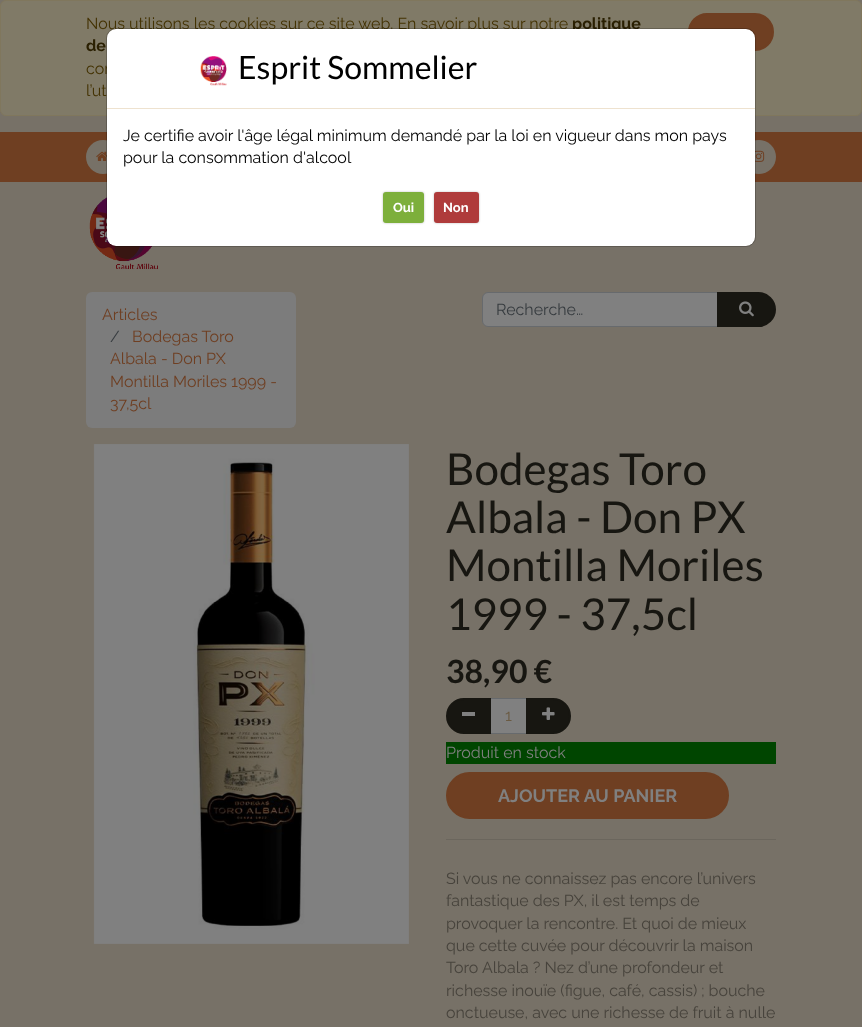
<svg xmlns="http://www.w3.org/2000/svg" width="862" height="1027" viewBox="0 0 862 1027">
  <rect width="100%" height="100%" fill="#777167"/>
  <rect x="0.5" y="0.5" width="861" height="115" rx="5.5" fill="#807a67" stroke="#80775d"/>
  <rect x="689" y="14" width="84" height="36" rx="18" fill="#6f3f22" stroke="#6f3f22" stroke-width="2"/>
  <path d="M0 132h862v50H0z" fill="#6f3f22"/>
  <circle cx="103" cy="157" r="17" fill="#777167"/>
  <image x="96" y="151" width="11" height="10" href="img/2.png"/>
  <circle cx="759" cy="157" r="17" fill="#777167"/>
  <image x="755" y="150" width="10" height="12" href="img/3.png"/>
  <image x="89" y="197" width="69" height="73" href="img/4.png"/>
  <rect x="86" y="292" width="210" height="136" rx="6" fill="#7c7c7c"/>
  <path d="M488 292.5H717.5V326.5H488C485 326.5 482.5 324 482.5 321V298C482.5 295 485 292.5 488 292.5Z" fill="#808080" stroke="#676a6d"/>
  <path d="M718 293H758.5C767.5 293 775 300.5 775 309.5C775 318.5 767.5 326 758.5 326H718Z" fill="#171611" stroke="#171611" stroke-width="2"/>
  <image x="739" y="301" width="15" height="16" href="img/5.png"/>
  <image x="93" y="444" width="316" height="500" href="img/6.png"/>
  <path d="M490.5 698.5h36v35H490.5z" fill="#808080" stroke="#676a6d"/>
  <path d="M464 699H490V733H464C454.5 733 447 725.5 447 716C447 706.5 454.5 699 464 699Z" fill="#171611" stroke="#171611" stroke-width="2"/>
  <path d="M462 712h13v4H462z" fill="#808080"/>
  <path d="M527 699H553C562.5 699 570 706.5 570 716C570 725.5 562.5 733 553 733H527Z" fill="#171611" stroke="#171611" stroke-width="2"/>
  <image x="542" y="707" width="13" height="13" href="img/7.png"/>
  <path d="M446 742h330v22H446z" fill="#004500"/>
  <rect x="447" y="773" width="281" height="45" rx="22.5" fill="#6f3f22" stroke="#6f3f22" stroke-width="2"/>
  <path d="M446 839h330v1H446z" fill="#6b665d"/>
  <text x="86" y="29" font-family="Raleway" font-size="16" fill="#433202">Nous utilisons les cookies sur ce site web. En savoir plus sur notre</text>
  <g font-family="Raleway" font-size="16" font-weight="bold" fill="#2a2002">
    <text x="572" y="29">politique</text>
    <text x="86" y="51">de</text>
  </g>
  <g font-family="Raleway" font-size="16" fill="#433202">
    <text x="86" y="74">cor</text>
    <text x="86" y="96">l’ut</text>
  </g>
  <rect x="107" y="29" width="648" height="217" rx="9" fill="#fff"/>
  <rect x="106.5" y="28.5" width="649" height="218" rx="9.5" fill="none" stroke="#00000033"/>
  <path d="M107 108h648v1H107z" fill="#eee2cf"/>
  <image x="200" y="56" width="27" height="30" href="img/1.png"/>
  <text x="238" y="79" font-family="Lato" font-size="32" fill="#000">Esprit Sommelier</text>
  <g font-family="Raleway" font-size="16" fill="#000">
    <text x="123" y="141">Je certifie avoir l'âge légal minimum demandé par la loi en vigueur dans mon pays</text>
    <text x="123" y="163">pour la consommation d'alcool</text>
  </g>
  <rect x="383" y="192" width="41" height="31" rx="3" fill="#00000040" filter="blur(1px)"/>
  <rect x="383" y="192" width="41" height="31" rx="3" fill="#7daf3b"/>
  <text x="393" y="212" font-family="Raleway" font-size="13" font-weight="bold" fill="#fff">Oui</text>
  <rect x="434" y="192" width="45" height="31" rx="3" fill="#00000040" filter="blur(1px)"/>
  <rect x="434" y="192" width="45" height="31" rx="3" fill="#af3b3b"/>
  <text x="443" y="212" font-family="Raleway" font-size="13" font-weight="bold" fill="#fff">Non</text>
  <text x="102" y="320" font-family="Raleway" font-size="16" fill="#6f3f22">Articles</text>
  <text x="110" y="342" font-family="Raleway" font-size="16" fill="#363b3f">/</text>
  <g font-family="Raleway" font-size="16" fill="#6f3f22">
    <text x="132" y="342">Bodegas Toro</text>
    <text x="110" y="364">Albala - Don PX</text>
    <text x="110" y="387">Montilla Moriles 1999 -</text>
    <text x="110" y="409">37,5cl</text>
  </g>
  <text x="496" y="315" font-family="Raleway" font-size="16" fill="#363b3f">Recherche…</text>
  <g font-family="Lato" font-size="44" fill="#171611">
    <text x="446" y="485">Bodegas Toro</text>
    <text x="446" y="533">Albala - Don PX</text>
    <text x="446" y="581">Montilla Moriles</text>
    <text x="446" y="630">1999 - 37,5cl</text>
  </g>
  <text x="446" y="683" font-family="Lato" font-size="32" font-weight="bold" fill="#171611">38,90 €</text>
  <text x="505" y="721" font-family="Raleway" font-size="16" fill="#6a5a42">1</text>
  <text x="446" y="758" font-family="Raleway" font-size="16" fill="#808080">Produit en stock</text>
  <text x="498" y="802" font-family="Raleway" font-size="18" font-weight="bold" fill="#808080">AJOUTER AU PANIER</text>
  <g font-family="Raleway" font-size="16" fill="#47433c">
    <text x="446" y="884">Si vous ne connaissez pas encore l’univers</text>
    <text x="446" y="906">fantastique des PX, il est temps de</text>
    <text x="446" y="929">provoquer la rencontre. Et quoi de mieux</text>
    <text x="446" y="951">que cette cuvée pour découvrir la maison</text>
    <text x="446" y="973">Toro Albala ? Nez d’une profondeur et</text>
    <text x="446" y="996">richesse inouïe (figue, café, cassis) ; bouche</text>
    <text x="446" y="1018">onctueuse, avec une richesse de fruit à nulle</text>
  </g>
</svg>
